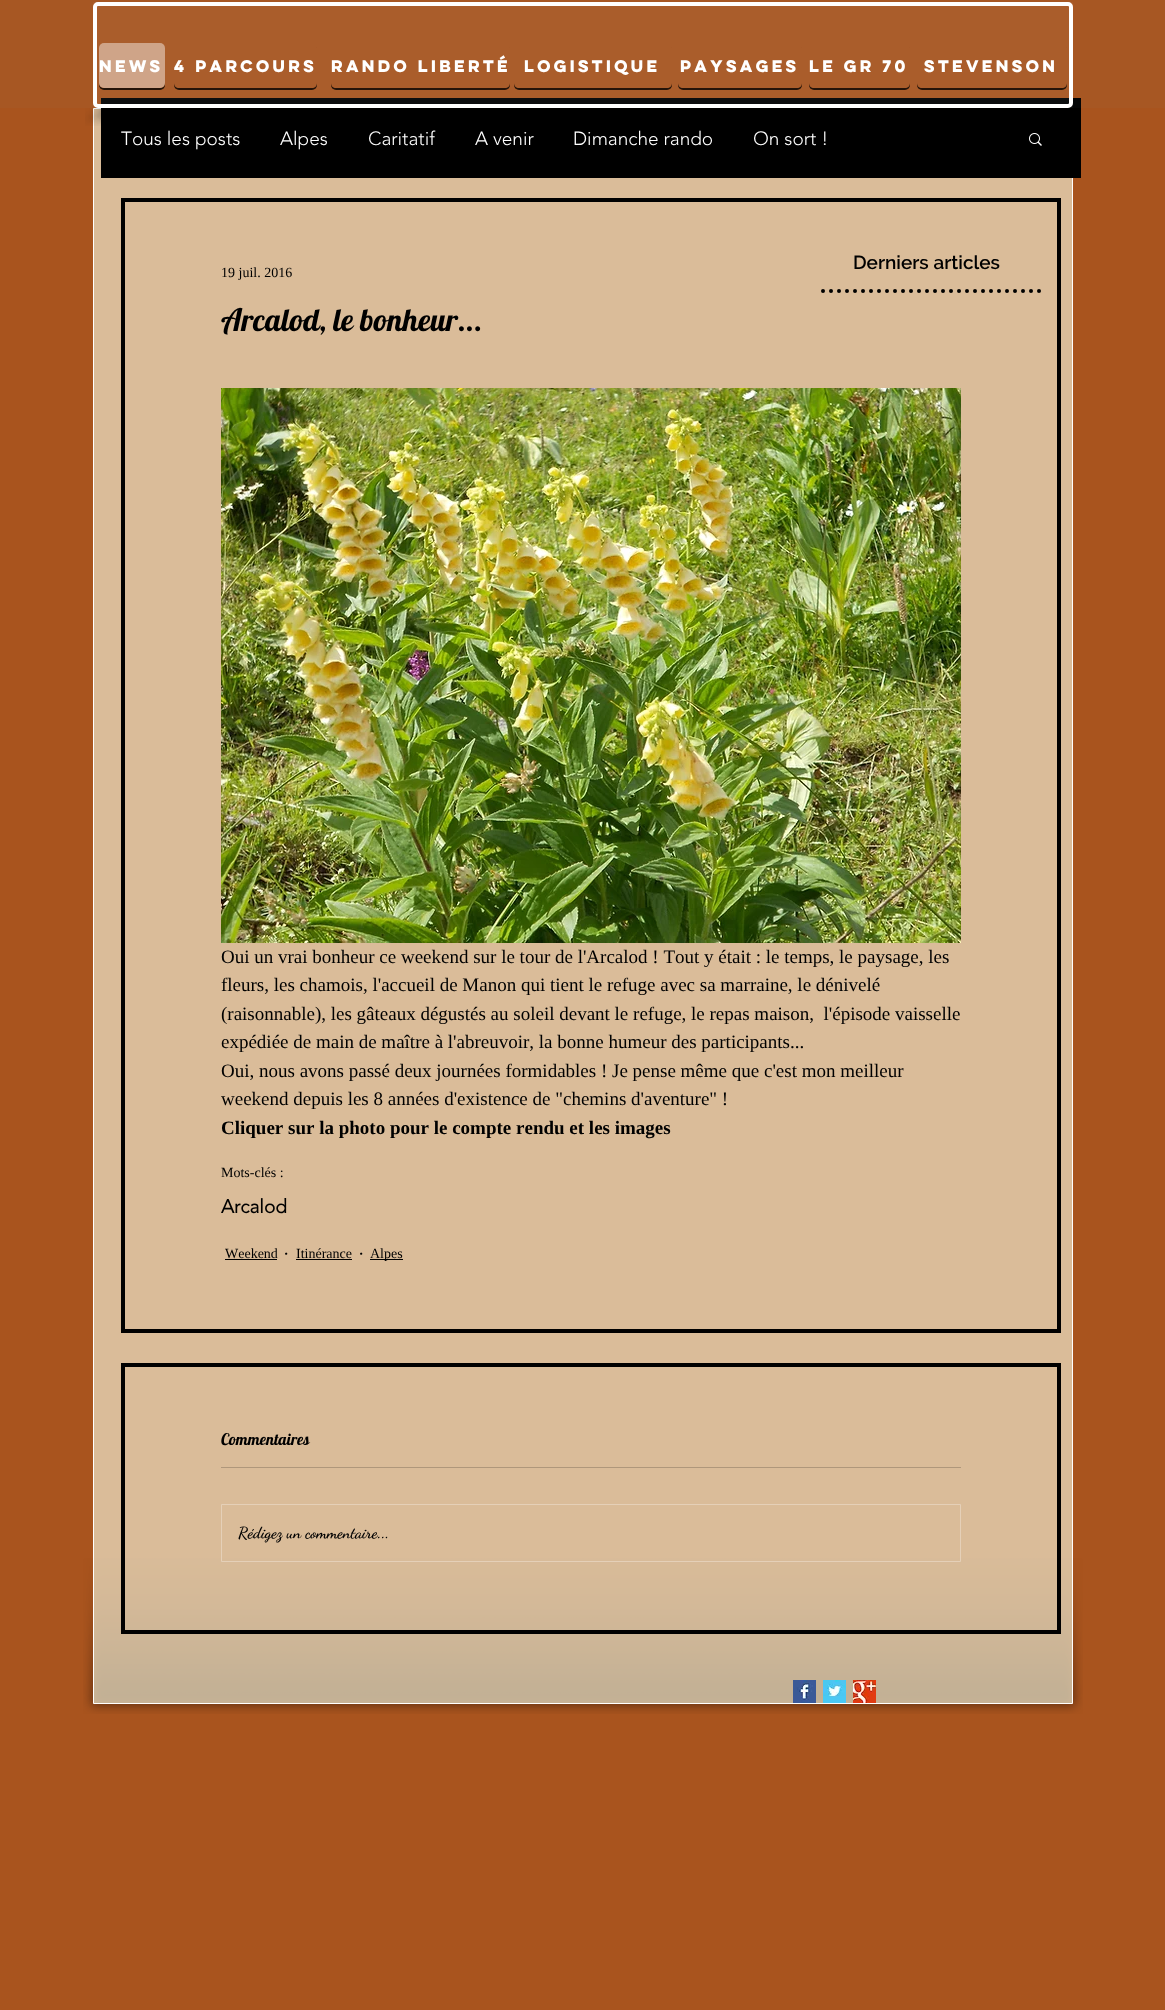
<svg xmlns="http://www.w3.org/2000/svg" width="1165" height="2010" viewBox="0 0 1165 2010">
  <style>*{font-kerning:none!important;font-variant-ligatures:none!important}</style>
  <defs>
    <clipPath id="clip1"><path d="M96 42H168V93H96ZM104 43H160C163 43 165 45 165 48V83C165 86 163 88 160 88H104C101 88 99 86 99 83V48C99 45 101 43 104 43Z" clip-rule="evenodd"/></clipPath>
    <clipPath id="clip2"><path d="M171 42H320V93H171ZM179 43H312C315 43 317 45 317 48V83C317 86 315 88 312 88H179C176 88 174 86 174 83V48C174 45 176 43 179 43Z" clip-rule="evenodd"/></clipPath>
    <clipPath id="clip3"><path d="M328 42H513V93H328ZM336 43H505C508 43 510 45 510 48V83C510 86 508 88 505 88H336C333 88 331 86 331 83V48C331 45 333 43 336 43Z" clip-rule="evenodd"/></clipPath>
    <clipPath id="clip4"><path d="M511 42H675V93H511ZM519 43H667C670 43 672 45 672 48V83C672 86 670 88 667 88H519C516 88 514 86 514 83V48C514 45 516 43 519 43Z" clip-rule="evenodd"/></clipPath>
    <clipPath id="clip5"><path d="M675 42H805V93H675ZM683 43H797C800 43 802 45 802 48V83C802 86 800 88 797 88H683C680 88 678 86 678 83V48C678 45 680 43 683 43Z" clip-rule="evenodd"/></clipPath>
    <clipPath id="clip6"><path d="M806 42H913V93H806ZM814 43H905C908 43 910 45 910 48V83C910 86 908 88 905 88H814C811 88 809 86 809 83V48C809 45 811 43 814 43Z" clip-rule="evenodd"/></clipPath>
    <clipPath id="clip7"><path d="M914 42H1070V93H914ZM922 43H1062C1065 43 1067 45 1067 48V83C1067 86 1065 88 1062 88H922C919 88 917 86 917 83V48C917 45 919 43 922 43Z" clip-rule="evenodd"/></clipPath>
  </defs>
  <rect width="100%" height="100%" fill="#a9541e"/>
  <path d="M0 0h1165v108H0z" fill="#a75723"/>
  <path d="M101 98h980v10H101z" fill="#030506"/>
  <path d="M93 2h980v106H93z" fill="#ffffff0a"/>
  <rect x="95" y="4" width="976" height="102" rx="3" fill="none" stroke="#fff" stroke-width="4"/>
  <g clip-path="url(#clip1)">
    <rect x="99" y="45" width="66" height="45" rx="5" fill="#000000c7" filter="blur(0.5px)"/>
  </g>
  <rect x="99" y="43" width="66" height="45" rx="5" fill="#ffffff70"/>
  <g clip-path="url(#clip2)">
    <rect x="174" y="45" width="143" height="45" rx="5" fill="#000000c7" filter="blur(0.5px)"/>
  </g>
  <g clip-path="url(#clip3)">
    <rect x="331" y="45" width="179" height="45" rx="5" fill="#000000c7" filter="blur(0.5px)"/>
  </g>
  <g clip-path="url(#clip4)">
    <rect x="514" y="45" width="158" height="45" rx="5" fill="#000000c7" filter="blur(0.5px)"/>
  </g>
  <g clip-path="url(#clip5)">
    <rect x="678" y="45" width="124" height="45" rx="5" fill="#000000c7" filter="blur(0.5px)"/>
  </g>
  <g clip-path="url(#clip6)">
    <rect x="809" y="45" width="101" height="45" rx="5" fill="#000000c7" filter="blur(0.5px)"/>
  </g>
  <g clip-path="url(#clip7)">
    <rect x="917" y="45" width="150" height="45" rx="5" fill="#000000c7" filter="blur(0.5px)"/>
  </g>
  <image x="83" y="1558" width="45" height="156" href="img/2.png"/>
  <image x="128" y="1558" width="910" height="156" href="img/3.png"/>
  <image x="1038" y="1558" width="45" height="156" href="img/4.png"/>
  <path d="M93.5 108.5h979v1595H93.5z" fill="#f5f5dca6" stroke="#fff"/>
  <image x="85" y="108" width="16" height="18" href="img/1.png"/>
  <path d="M101 108h980v70H101z" fill="#000"/>
  <image x="1029" y="133" width="13" height="13" href="img/5.png"/>
  <path d="M123 200h936v1131H123z" fill="none" stroke="#000" stroke-width="4"/>
  <image x="221" y="388" width="740" height="555" href="img/6.png"/>
  <path d="M225 1259h52v1H225z" fill="#000"/>
  <path d="M296 1259h56v1H296z" fill="#000"/>
  <path d="M370 1259h33v1H370z" fill="#000"/>
  <path d="M123 1365h936v267H123z" fill="none" stroke="#000" stroke-width="4"/>
  <path d="M221 1467h740v1H221z" fill="#af977b"/>
  <path d="M221.5 1504.5h739v57H221.5z" fill="none" stroke="#e5d0b8"/>
  <path d="M823 291H1043" fill="none" stroke="#000" stroke-width="4" stroke-linecap="round" stroke-dasharray="0 8"/>
  <image x="793" y="1680" width="23" height="23" href="img/7.png"/>
  <image x="823" y="1680" width="23" height="23" href="img/8.png"/>
  <image x="853" y="1680" width="23" height="23" href="img/9.png"/>
  <g font-family="'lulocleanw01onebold'" font-size="15" font-weight="bold" fill="#fff">
    <text x="99" y="72">NEWS</text>
    <text x="174" y="72">4 PARCOURS</text>
    <text x="331" y="72">rando liberté</text>
    <text x="524" y="72">Logistique</text>
    <text x="680" y="72">paysages</text>
    <text x="809" y="72">le GR 70</text>
    <text x="924" y="72">STEVENSON</text>
  </g>
  <g font-family="'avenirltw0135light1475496'" font-size="19" font-weight="300" fill="#fff">
    <text x="121" y="145">Tous les posts</text>
    <text x="280" y="145">Alpes</text>
    <text x="368" y="145">Caritatif</text>
    <text x="475" y="145">A venir</text>
    <text x="573" y="145">Dimanche rando</text>
    <text x="753" y="145">On sort !</text>
  </g>
  <text x="221" y="277" font-family="Liberation Serif" font-size="14" fill="#000">19 juil. 2016</text>
  <text x="221" y="331" font-family="Lobster" font-size="31" fill="#000">Arcalod, le bonheur...</text>
  <g font-family="Liberation Serif" font-size="19" fill="#000">
    <text x="221" y="963">Oui un vrai bonheur ce weekend sur le tour de l'Arcalod ! Tout y était : le temps, le paysage, les</text>
    <text x="221" y="991">fleurs, les chamois, l'accueil de Manon qui tient le refuge avec sa marraine, le dénivelé</text>
    <text x="221" y="1020" xml:space="preserve">(raisonnable), les gâteaux dégustés au soleil devant le refuge, le repas maison,  l'épisode vaisselle</text>
    <text x="221" y="1048">expédiée de main de maître à l'abreuvoir, la bonne humeur des participants...</text>
    <text x="221" y="1077">Oui, nous avons passé deux journées formidables ! Je pense même que c'est mon meilleur</text>
    <text x="221" y="1105">weekend depuis les 8 années d'existence de "chemins d'aventure" !</text>
  </g>
  <text x="221" y="1134" font-family="Liberation Serif" font-size="19" font-weight="bold" fill="#000">Cliquer sur la photo pour le compte rendu et les images</text>
  <text x="221" y="1177" font-family="Liberation Serif" font-size="14" fill="#000">Mots-clés :</text>
  <text x="221" y="1213" font-family="'avenirltw0135light1475496'" font-size="19" font-weight="bold" fill="#000">Arcalod</text>
  <text x="225" y="1258" font-family="Liberation Serif" font-size="14" fill="#000">Weekend</text>
  <text x="283" y="1260" font-family="Liberation Serif" font-size="19" fill="#000">·</text>
  <text x="296" y="1258" font-family="Liberation Serif" font-size="14" fill="#000">Itinérance</text>
  <text x="358" y="1260" font-family="Liberation Serif" font-size="19" fill="#000">·</text>
  <text x="370" y="1258" font-family="Liberation Serif" font-size="14" fill="#000">Alpes</text>
  <text x="221" y="1445" font-family="Lobster" font-size="16" fill="#000">Commentaires</text>
  <text x="238" y="1538" font-family="Dancing Script" font-size="16" font-weight="bold" fill="#000">Rédigez un commentaire...</text>
  <text x="853" y="269" font-family="Raleway" font-size="19" font-weight="600" fill="#000">Derniers articles</text>
</svg>
